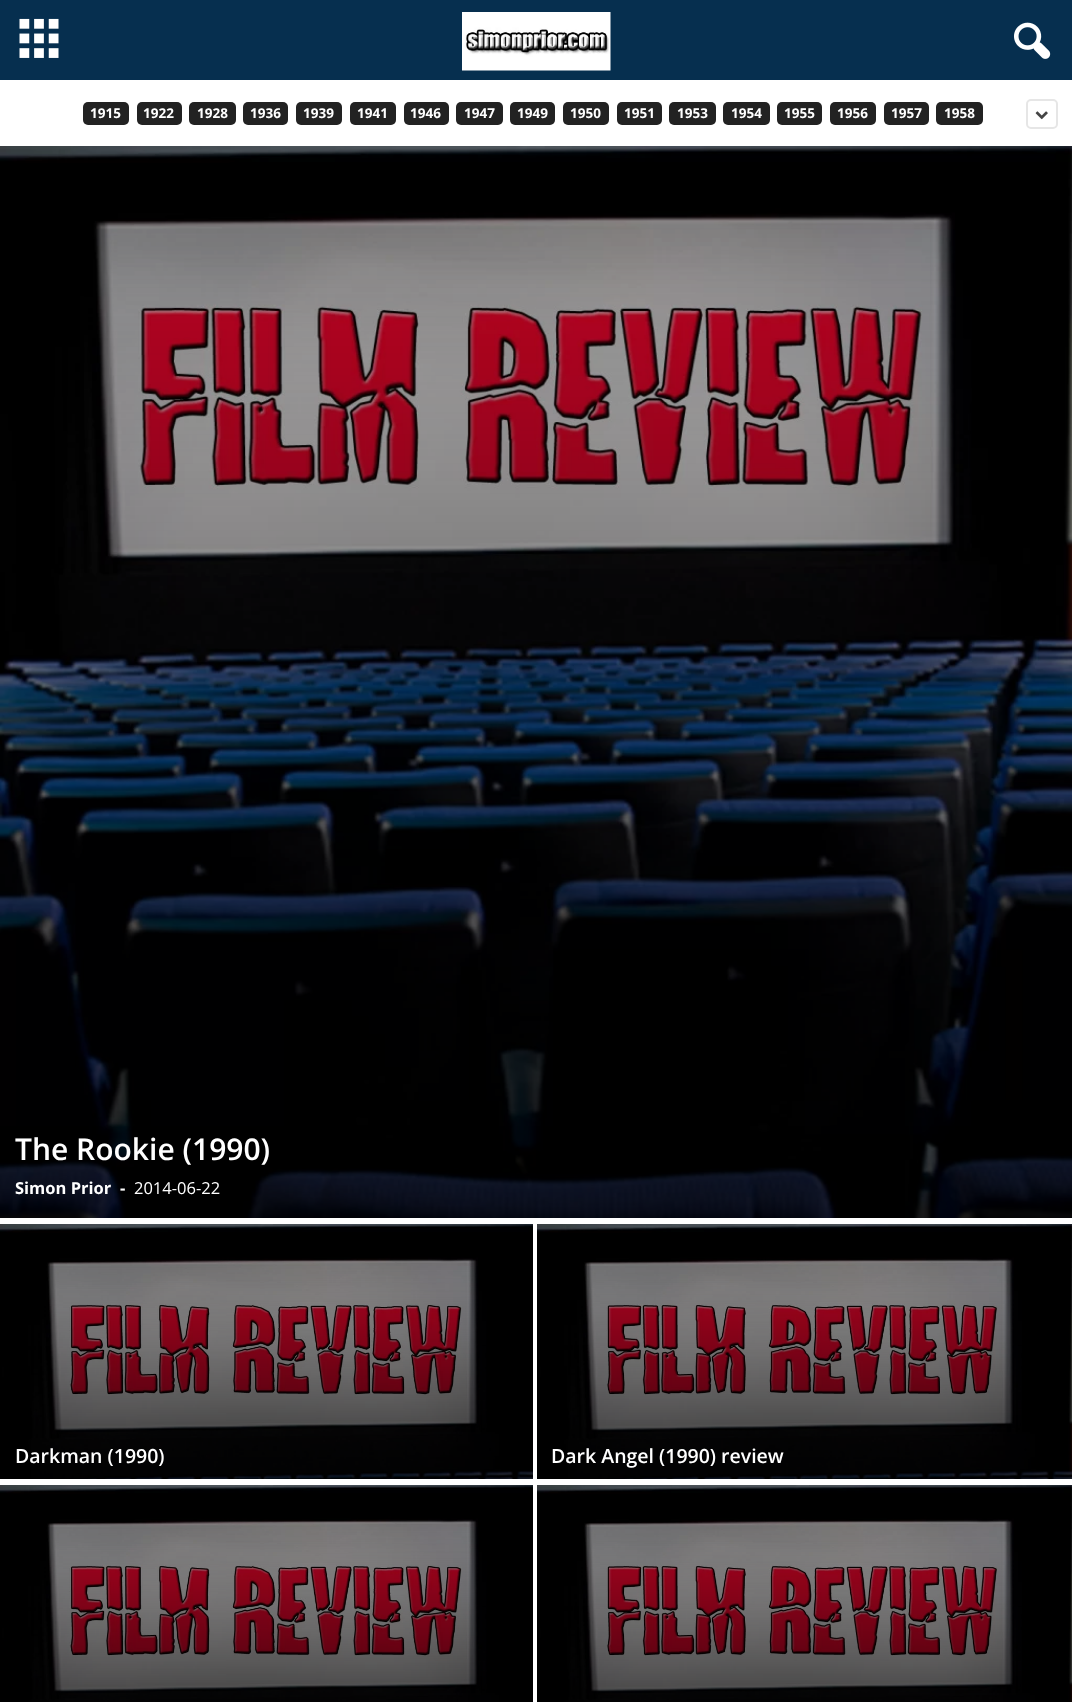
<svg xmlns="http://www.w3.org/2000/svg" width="1072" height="1702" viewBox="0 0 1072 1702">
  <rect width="100%" height="100%" fill="#fff"/>
  <path d="M0 0h1072v80H0z" fill="#062f4f"/>
  <image x="19" y="18" width="40" height="40" href="img/1.png"/>
  <image x="462" y="12" width="149" height="59" href="img/2.png"/>
  <image x="1014" y="22" width="37" height="37" href="img/3.png"/>
  <rect x="83" y="102" width="46" height="23" rx="5" fill="#222"/>
  <rect x="137" y="102" width="45" height="23" rx="5" fill="#222"/>
  <rect x="189" y="102" width="47" height="23" rx="5" fill="#222"/>
  <rect x="243" y="102" width="45" height="23" rx="5" fill="#222"/>
  <rect x="296" y="102" width="46" height="23" rx="5" fill="#222"/>
  <rect x="350" y="102" width="46" height="23" rx="5" fill="#222"/>
  <rect x="404" y="102" width="45" height="23" rx="5" fill="#222"/>
  <rect x="456" y="102" width="47" height="23" rx="5" fill="#222"/>
  <rect x="510" y="102" width="45" height="23" rx="5" fill="#222"/>
  <rect x="563" y="102" width="46" height="23" rx="5" fill="#222"/>
  <rect x="617" y="102" width="45" height="23" rx="5" fill="#222"/>
  <rect x="669" y="102" width="47" height="23" rx="5" fill="#222"/>
  <rect x="723" y="102" width="47" height="23" rx="5" fill="#222"/>
  <rect x="777" y="102" width="45" height="23" rx="5" fill="#222"/>
  <rect x="830" y="102" width="46" height="23" rx="5" fill="#222"/>
  <rect x="884" y="102" width="45" height="23" rx="5" fill="#222"/>
  <rect x="936" y="102" width="47" height="23" rx="5" fill="#222"/>
  <rect x="1027" y="100" width="30" height="28" rx="4" fill="none" stroke="#e6e6e6" stroke-width="2"/>
  <image x="1035" y="111" width="13" height="9" href="img/4.png"/>
  <image x="0" y="146" width="1072" height="1072" href="img/5.png"/>
  <image x="0" y="1224" width="533" height="255" href="img/6.png"/>
  <image x="537" y="1224" width="535" height="255" href="img/7.png"/>
  <image x="0" y="1485" width="533" height="217" href="img/8.png"/>
  <image x="537" y="1485" width="535" height="217" href="img/9.png"/>
  <g font-family="Open Sans" font-size="13.5" font-weight="bold" fill="#fff">
    <text x="90" y="118">1915</text>
    <text x="143" y="118">1922</text>
    <text x="197" y="118">1928</text>
    <text x="250" y="118">1936</text>
    <text x="303" y="118">1939</text>
    <text x="357" y="118">1941</text>
    <text x="410" y="118">1946</text>
    <text x="464" y="118">1947</text>
    <text x="517" y="118">1949</text>
    <text x="570" y="118">1950</text>
    <text x="624" y="118">1951</text>
    <text x="677" y="118">1953</text>
    <text x="731" y="118">1954</text>
    <text x="784" y="118">1955</text>
    <text x="837" y="118">1956</text>
    <text x="891" y="118">1957</text>
    <text x="944" y="118">1958</text>
  </g>
  <text x="15" y="1160" font-family="Open Sans" font-size="30" font-weight="600" fill="#fff">The Rookie (1990)</text>
  <g font-family="Open Sans" font-size="16.5" font-weight="bold" fill="#fff">
    <text x="15" y="1194">Simon Prior</text>
    <text x="120" y="1194">-</text>
  </g>
  <text x="134" y="1194" font-family="Open Sans" font-size="16.5" fill="#fff">2014-06-22</text>
  <g font-family="Open Sans" font-size="19.5" font-weight="600" fill="#fff">
    <text x="15" y="1463">Darkman (1990)</text>
    <text x="551" y="1463">Dark Angel (1990) review</text>
  </g>
</svg>
